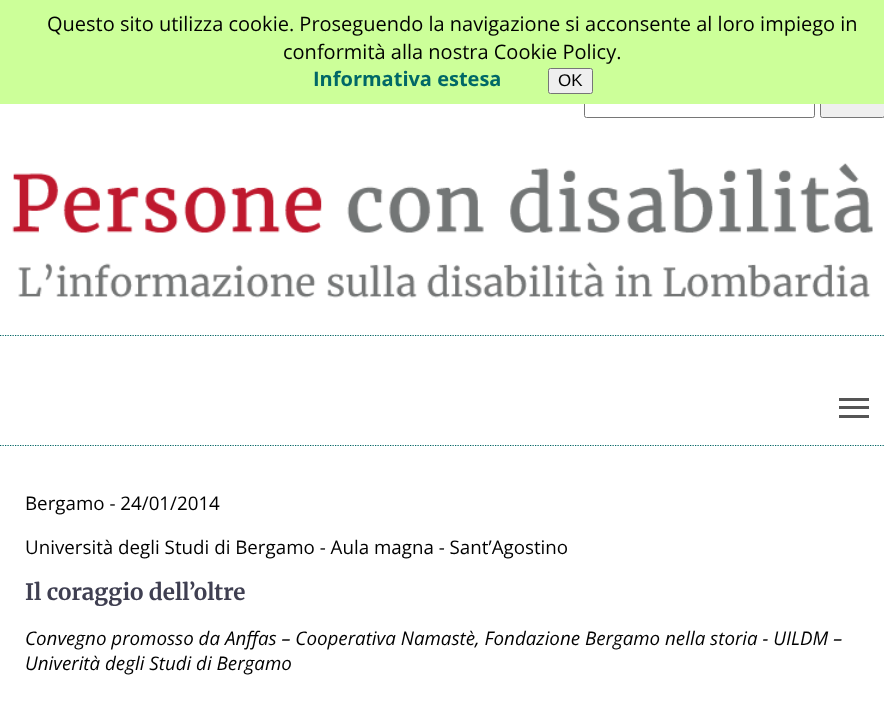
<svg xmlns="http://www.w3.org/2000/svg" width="884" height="707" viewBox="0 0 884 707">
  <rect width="100%" height="100%" fill="#fff"/>
  <rect x="584.5" y="91.5" width="230" height="26" rx="2" fill="none" stroke="#767676"/>
  <rect x="820.5" y="91.5" width="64" height="26" rx="2" fill="#efefef" stroke="#767676"/>
  <path d="M0 0h884v104H0z" fill="#cf9"/>
  <rect x="548.5" y="68.5" width="44" height="25" rx="2" fill="#efefef" stroke="#767676"/>
  <image x="12" y="163" width="861" height="135" href="img/1.png"/>
  <path d="M0 335.5H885" fill="none" stroke="#006564" stroke-width="1.2" stroke-dasharray="1.25 1.25"/>
  <path d="M0 445.5H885" fill="none" stroke="#006564" stroke-width="1.2" stroke-dasharray="1.25 1.25"/>
  <path d="M839 406h30v3H839z" fill="#555"/>
  <path d="M839 398h30v3H839z" fill="#555"/>
  <path d="M839 415h30v3H839z" fill="#555"/>
  <g font-family="Open Sans" font-size="20" fill="#000">
    <text x="47" y="31">Questo sito utilizza cookie. Proseguendo la navigazione si acconsente al loro impiego in</text>
    <text x="283" y="59">conformità alla nostra Cookie Policy.</text>
  </g>
  <text x="313" y="86" font-family="Open Sans" font-size="20" font-weight="bold" fill="#006867">Informativa estesa</text>
  <text x="558" y="86" font-family="Liberation Sans" font-size="17" fill="#000">OK</text>
  <g font-family="Open Sans" font-size="18.75" fill="#000">
    <text x="25" y="510">Bergamo - 24/01/2014</text>
    <text x="25" y="554">Università degli Studi di Bergamo - Aula magna - Sant’Agostino</text>
  </g>
  <text x="25" y="600" font-family="Merriweather" font-size="22.5" font-weight="bold" fill="#3f3f51">Il coraggio dell’oltre</text>
  <g font-family="Open Sans" font-size="18.75" font-style="italic" fill="#000">
    <text x="25" y="645">Convegno promosso da Anffas – Cooperativa Namastè, Fondazione Bergamo nella storia - UILDM –</text>
    <text x="25" y="670">Univerità degli Studi di Bergamo</text>
  </g>
</svg>
